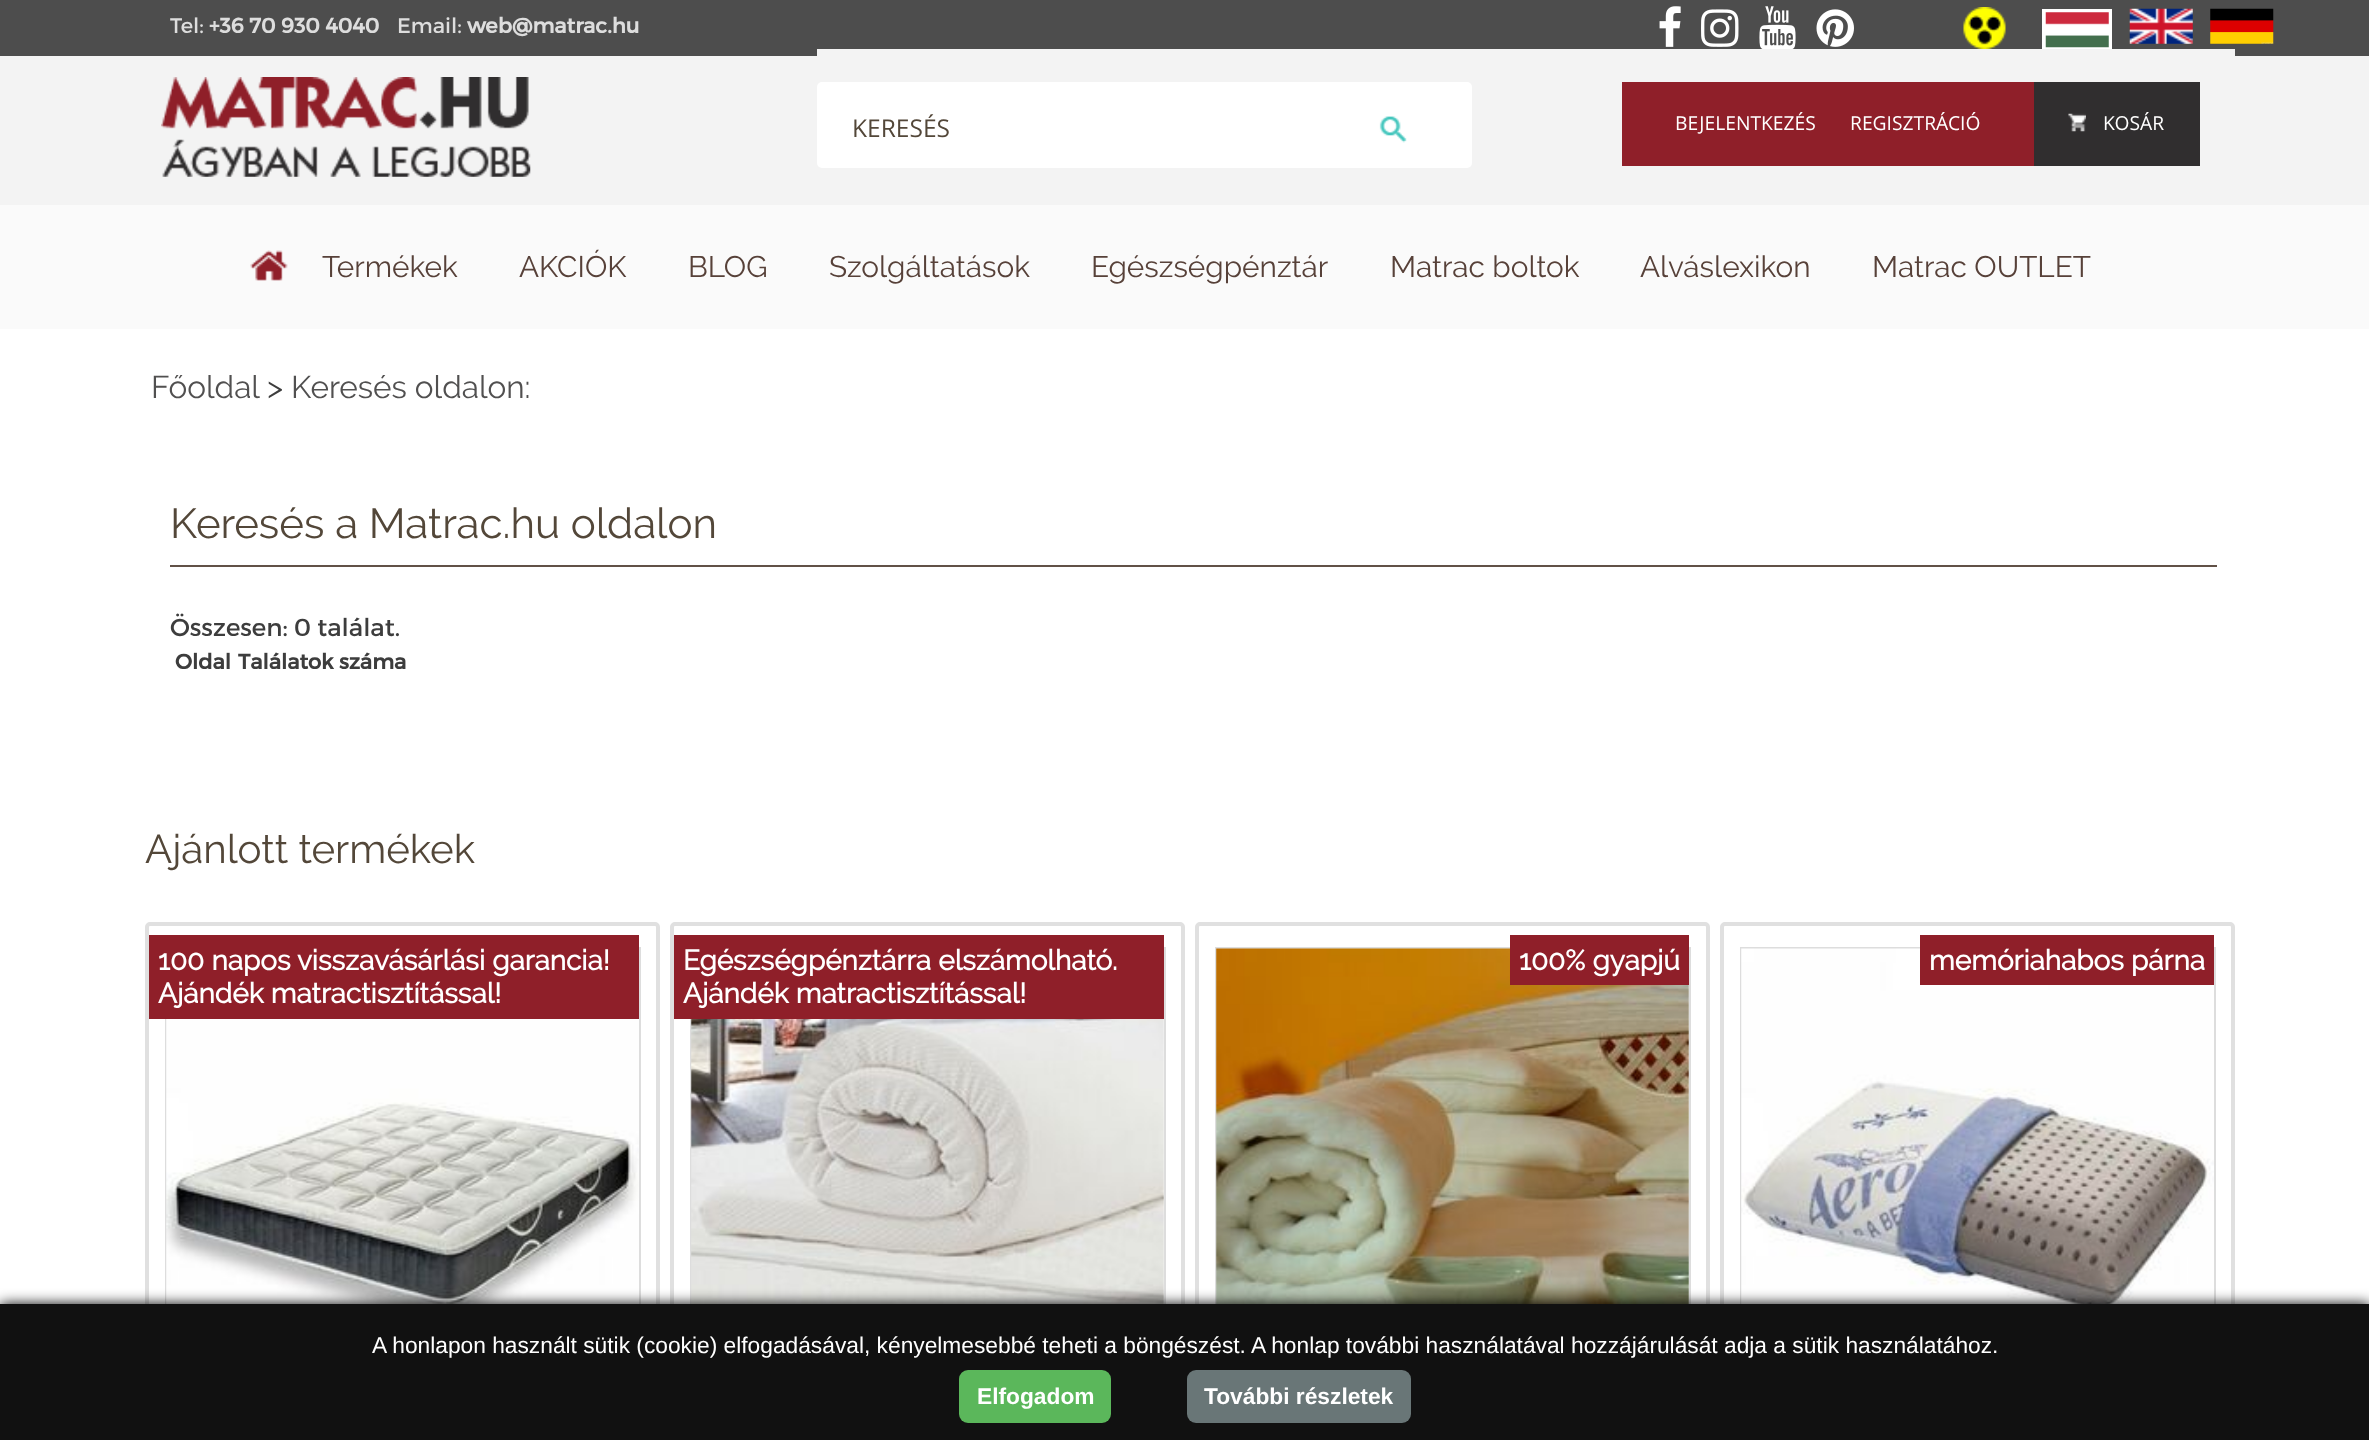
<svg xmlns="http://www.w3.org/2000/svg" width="2369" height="1440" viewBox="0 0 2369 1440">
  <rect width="100%" height="100%" fill="#fff"/>
  <path d="M0 0h2369v56H0z" fill="#4d4d4d"/>
  <image x="1659" y="6" width="22" height="41" href="img/1.png"/>
  <image x="1701" y="9" width="38" height="38" href="img/2.png"/>
  <image x="1759" y="6" width="37" height="43" href="img/3.png"/>
  <image x="1816" y="9" width="38" height="38" href="img/4.png"/>
  <image x="1963" y="7" width="43" height="42" href="img/5.png"/>
  <path d="M2044 11h66v38H2044z" fill="none" stroke="#fff" stroke-width="4"/>
  <image x="2045" y="12" width="64" height="36" href="img/6.png"/>
  <image x="2129" y="8" width="64" height="36" href="img/7.png"/>
  <image x="2210" y="8" width="64" height="36" href="img/8.png"/>
  <path d="M0 56h2369v149H0z" fill="#f3f3f3"/>
  <image x="161" y="77" width="370" height="100" href="img/9.png"/>
  <path d="M817 49h1418v7H817z" fill="#f3f3f3"/>
  <rect x="817" y="82" width="655" height="86" rx="5" fill="#fff"/>
  <image x="1379" y="116" width="28" height="27" href="img/10.png"/>
  <path d="M1622 82h412v84H1622z" fill="#8f1f29"/>
  <path d="M2034 82h166v84H2034z" fill="#302e2f"/>
  <image x="2068" y="113" width="18" height="19" href="img/11.png"/>
  <path d="M0 205h2369v124H0z" fill="#fafafa"/>
  <image x="250" y="250" width="38" height="31" href="img/12.png"/>
  <path d="M170 565h2047v2H170z" fill="#615147"/>
  <rect x="147" y="924" width="511" height="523" rx="3" fill="none" stroke="#e0e0e0" stroke-width="4"/>
  <path d="M166 948h474v474H166z" fill="none" stroke="#ddd" stroke-width="2"/>
  <image x="166" y="1019" width="473" height="285" href="img/13.png"/>
  <path d="M149 935h490v84H149z" fill="#8f1f29"/>
  <rect x="672" y="924" width="511" height="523" rx="3" fill="none" stroke="#e0e0e0" stroke-width="4"/>
  <path d="M691 948h474v474H691z" fill="none" stroke="#ddd" stroke-width="2"/>
  <image x="691" y="1019" width="473" height="285" href="img/14.png"/>
  <path d="M674 935h490v84H674z" fill="#8f1f29"/>
  <rect x="1197" y="924" width="511" height="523" rx="3" fill="none" stroke="#e0e0e0" stroke-width="4"/>
  <path d="M1216 948h474v474H1216z" fill="none" stroke="#ddd" stroke-width="2"/>
  <image x="1216" y="948" width="473" height="356" href="img/15.png"/>
  <path d="M1510 935h179v50H1510z" fill="#8f1f29"/>
  <rect x="1722" y="924" width="511" height="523" rx="3" fill="none" stroke="#e0e0e0" stroke-width="4"/>
  <path d="M1741 948h474v474H1741z" fill="none" stroke="#ddd" stroke-width="2"/>
  <image x="1741" y="948" width="473" height="356" href="img/16.png"/>
  <path d="M1920 935h294v50H1920z" fill="#8f1f29"/>
  <path d="M0 1304h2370v136H0z" fill="#000" filter="blur(7px)"/>
  <path d="M0 1304h2369v136H0z" fill="#111"/>
  <rect x="959" y="1370" width="152" height="53" rx="9" fill="#5bb75b"/>
  <rect x="1187" y="1370" width="224" height="53" rx="9" fill="#697677"/>
  <text x="170" y="33" font-family="Montserrat" font-size="21" fill="#ddd">Tel:</text>
  <text x="209" y="33" font-family="Montserrat" font-size="21" font-weight="bold" fill="#ddd">+36 70 930 4040</text>
  <text x="397" y="33" font-family="Montserrat" font-size="21" fill="#ddd">Email:</text>
  <text x="467" y="33" font-family="Montserrat" font-size="21" font-weight="bold" fill="#ddd">web@matrac.hu</text>
  <text x="852" y="137" font-family="Open Sans" font-size="24.5" fill="#534739">KERESÉS</text>
  <g font-family="Open Sans" font-size="19.25" fill="#fff">
    <text x="1675" y="130">BEJELENTKEZÉS</text>
    <text x="1850" y="130">REGISZTRÁCIÓ</text>
    <text x="2103" y="130">KOSÁR</text>
  </g>
  <g font-family="Raleway" font-size="29.75" fill="#574139">
    <text x="322" y="277">Termékek</text>
    <text x="519" y="277">AKCIÓK</text>
    <text x="688" y="277">BLOG</text>
    <text x="829" y="277">Szolgáltatások</text>
    <text x="1091" y="277">Egészségpénztár</text>
    <text x="1390" y="277">Matrac boltok</text>
    <text x="1640" y="277">Alváslexikon</text>
    <text x="1872" y="277">Matrac OUTLET</text>
  </g>
  <text x="151" y="398" font-family="Raleway" font-size="31.5" fill="#515050">Főoldal</text>
  <text x="267" y="398" font-family="Raleway" font-size="31.5" fill="#3d3d3d">&gt;</text>
  <text x="291" y="398" font-family="Raleway" font-size="31.5" fill="#515050">Keresés oldalon:</text>
  <text x="170" y="538" font-family="Raleway" font-size="42" fill="#534739">Keresés a Matrac.hu oldalon</text>
  <text x="170" y="636" font-family="Montserrat" font-size="24.5" fill="#3d3d3d">Összesen: 0 találat.</text>
  <g font-family="Montserrat" font-size="21" font-weight="bold" fill="#3d3d3d">
    <text x="175" y="669">Oldal</text>
    <text x="238" y="669">Találatok száma</text>
  </g>
  <text x="145" y="863" font-family="Raleway" font-size="40.25" fill="#534739">Ajánlott termékek</text>
  <g font-family="Raleway" font-size="28" font-weight="bold" fill="#fff">
    <text x="158" y="970">100 napos visszavásárlási garancia!</text>
    <text x="158" y="1003">Ajándék matractisztítással!</text>
    <text x="683" y="970">Egészségpénztárra elszámolható.</text>
    <text x="683" y="1003">Ajándék matractisztítással!</text>
    <text x="1519" y="970">100% gyapjú</text>
    <text x="1929" y="970">memóriahabos párna</text>
  </g>
  <text x="372" y="1353" font-family="Liberation Sans" font-size="22.75" fill="#fff">A honlapon használt sütik (cookie) elfogadásával, kényelmesebbé teheti a böngészést. A honlap további használatával hozzájárulását adja a sütik használatához.</text>
  <g font-family="Liberation Sans" font-size="22.75" font-weight="bold" fill="#fff">
    <text x="977" y="1404">Elfogadom</text>
    <text x="1204" y="1404">További részletek</text>
  </g>
</svg>
